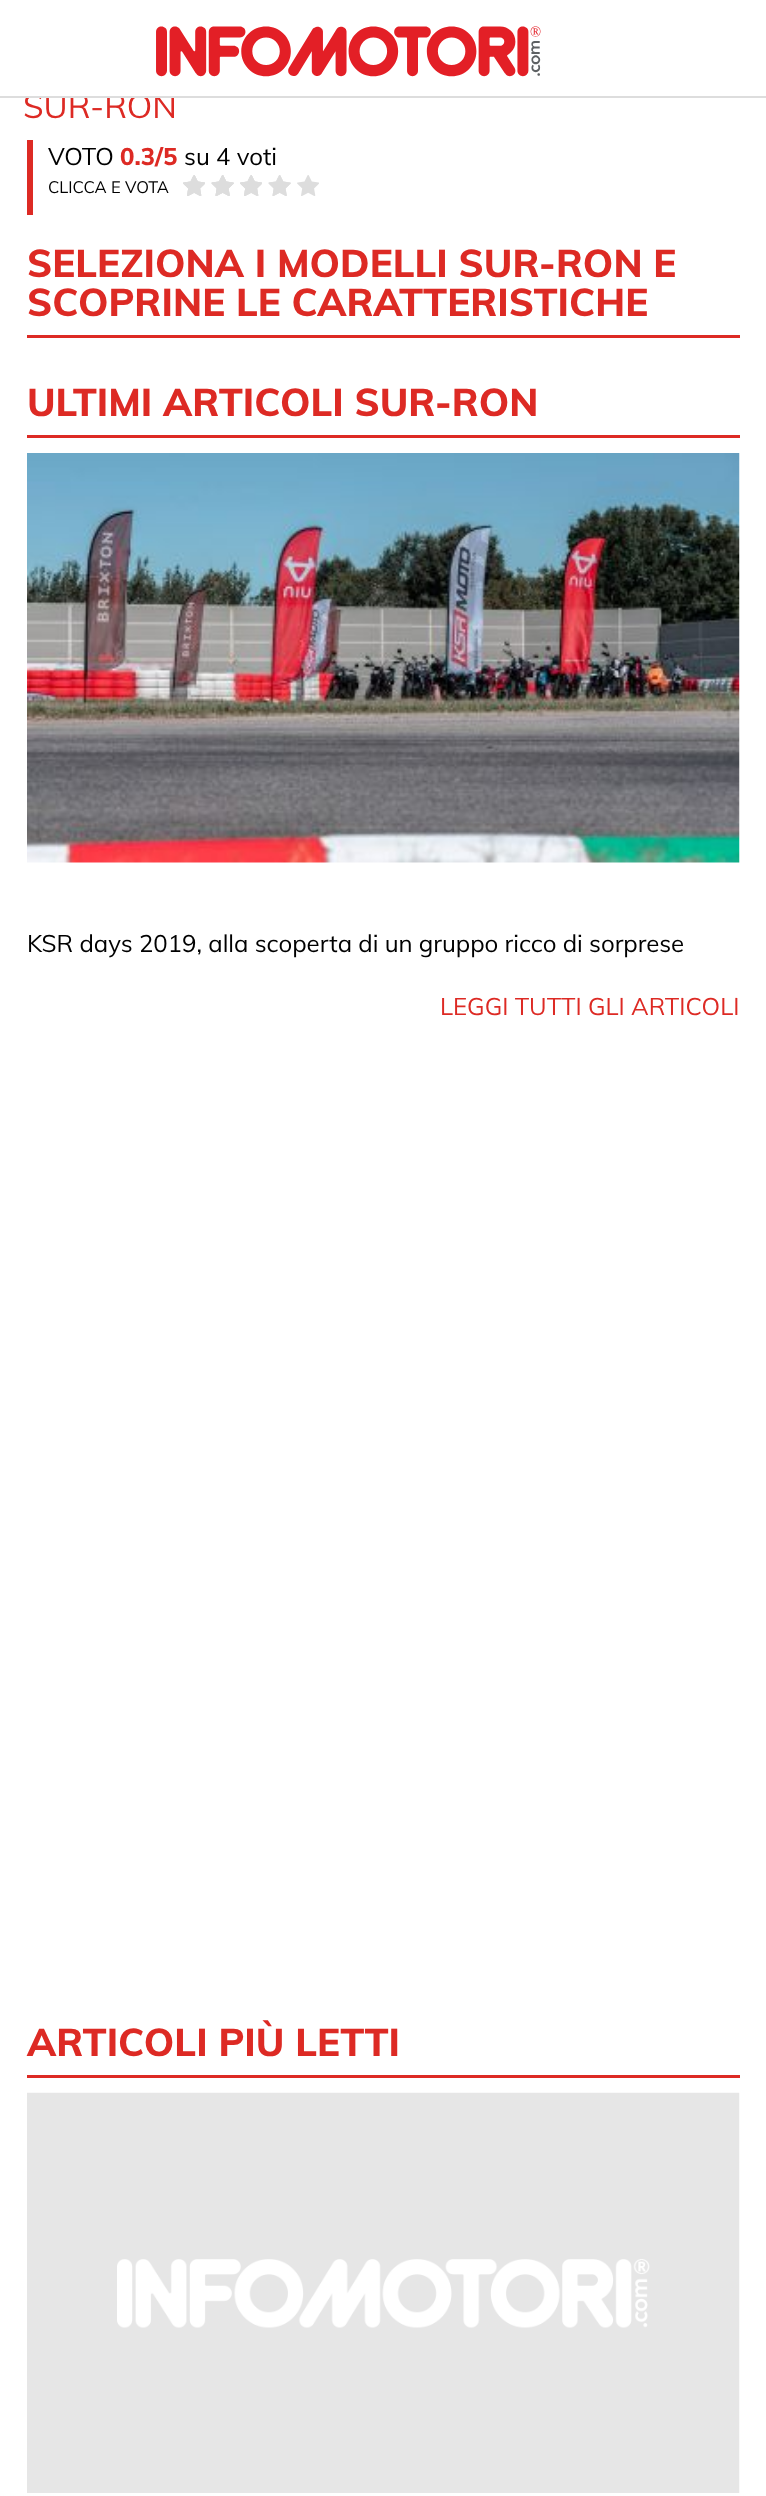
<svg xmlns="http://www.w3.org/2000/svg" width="766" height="2496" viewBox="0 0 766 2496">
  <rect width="100%" height="100%" fill="#fff"/>
  <image x="156" y="26" width="385" height="51" href="img/1.png"/>
  <path d="M27 140h6v75H27z" fill="#dd2a24"/>
  <image x="183" y="175" width="22" height="21" href="img/2.png"/>
  <image x="211" y="175" width="23" height="21" href="img/3.png"/>
  <image x="240" y="175" width="22" height="21" href="img/2.png"/>
  <image x="268" y="175" width="23" height="21" href="img/3.png"/>
  <image x="297" y="175" width="22" height="21" href="img/2.png"/>
  <image x="183" y="175" width="22" height="21" href="img/4.png"/>
  <image x="211" y="175" width="23" height="21" href="img/5.png"/>
  <image x="240" y="175" width="22" height="21" href="img/4.png"/>
  <image x="268" y="175" width="23" height="21" href="img/5.png"/>
  <image x="183" y="176" width="22" height="20" href="img/6.png"/>
  <image x="211" y="175" width="23" height="21" href="img/7.png"/>
  <image x="240" y="176" width="22" height="20" href="img/6.png"/>
  <path d="M27 335h713v3H27z" fill="#dd2a24"/>
  <path d="M27 435h713v3H27z" fill="#dd2a24"/>
  <image x="27" y="453" width="713" height="410" href="img/8.png"/>
  <path d="M27 2075h713v3H27z" fill="#dd2a24"/>
  <image x="27" y="2092" width="713" height="401" href="img/9.png"/>
  <text x="23" y="118" font-family="Muli" font-size="33" fill="#dd2a24">SUR-RON</text>
  <path d="M0 96h766v2H0z" fill="#ddd"/>
  <path d="M27 94h147v2H27z" fill="#fff"/>
  <text x="48" y="165" font-family="Muli" font-size="24" fill="#000">VOTO</text>
  <text x="120" y="165" font-family="Muli" font-size="24" font-weight="800" fill="#dd2a24">0.3/5</text>
  <text x="184" y="165" font-family="Muli" font-size="24" fill="#000">su 4 voti</text>
  <text x="48" y="193" font-family="Muli" font-size="16.5" fill="#000">CLICCA E VOTA</text>
  <g font-family="Muli" font-size="38.4" font-weight="800" fill="#dd2a24">
    <text x="27" y="277">SELEZIONA I MODELLI SUR-RON E</text>
    <text x="27" y="316">SCOPRINE LE CARATTERISTICHE</text>
    <text x="27" y="416">ULTIMI ARTICOLI SUR-RON</text>
  </g>
  <text x="27" y="952" font-family="Muli" font-size="24" fill="#000">KSR days 2019, alla scoperta di un gruppo ricco di sorprese</text>
  <text x="440" y="1015" font-family="Muli" font-size="24" fill="#dd2a24">LEGGI TUTTI GLI ARTICOLI</text>
  <text x="27" y="2056" font-family="Muli" font-size="38.4" font-weight="800" fill="#dd2a24">ARTICOLI PIÙ LETTI</text>
</svg>
